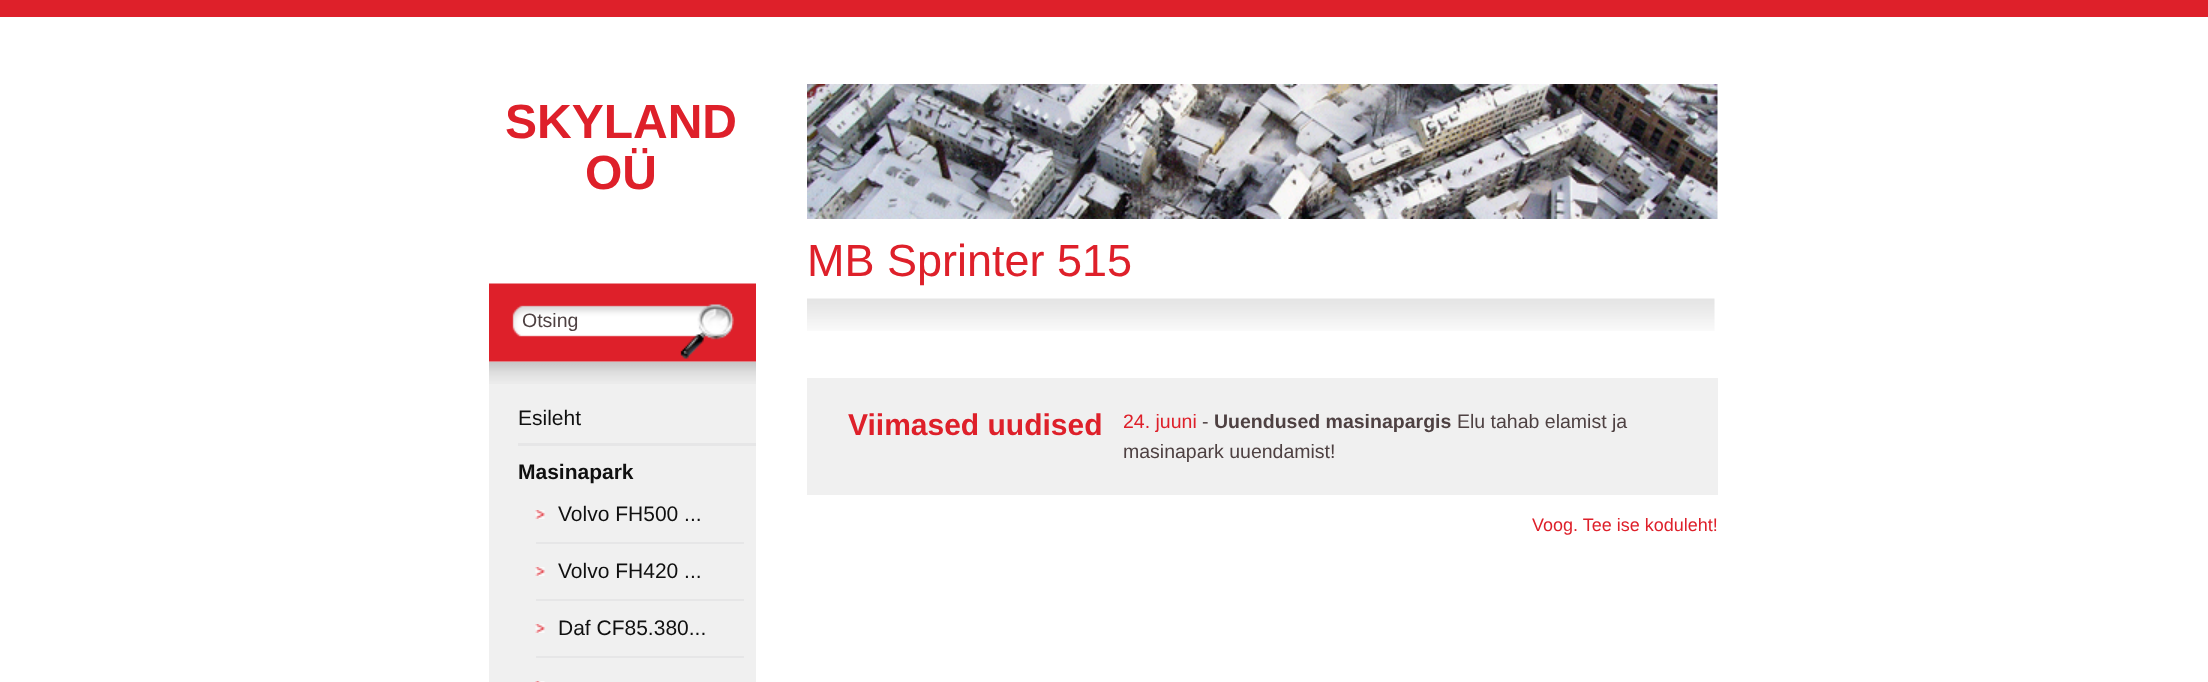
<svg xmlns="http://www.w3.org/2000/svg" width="2208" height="682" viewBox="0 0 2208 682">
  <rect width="100%" height="100%" fill="#fff"/>
  <path d="M0 0h2208v17H0z" fill="#de202a"/>
  <image x="489" y="361" width="267" height="23" href="img/2.png"/>
  <image x="489" y="283" width="267" height="79" href="img/1.png"/>
  <path d="M489 384h267v298H489z" fill="#f0f0f0"/>
  <path d="M518 443h238v3H518z" fill="#e6e6e7"/>
  <image x="535" y="510" width="10" height="9" href="img/3.png"/>
  <path d="M536 542h208v2H536z" fill="#e6e6e7"/>
  <image x="535" y="567" width="10" height="9" href="img/3.png"/>
  <path d="M536 599h208v2H536z" fill="#e6e6e7"/>
  <image x="535" y="624" width="10" height="9" href="img/3.png"/>
  <path d="M536 656h208v2H536z" fill="#e6e6e7"/>
  <image x="535" y="681" width="10" height="1" href="img/4.png"/>
  <image x="807" y="84" width="911" height="135" href="img/5.png"/>
  <image x="807" y="298" width="908" height="33" href="img/6.png"/>
  <path d="M807 378h911v117H807z" fill="#f0f0f0"/>
  <g font-family="Liberation Sans" font-size="48" font-weight="bold" fill="#de202a">
    <text x="505" y="138">SKYLAND</text>
    <text x="585" y="189">OÜ</text>
  </g>
  <text x="522" y="327" font-family="Liberation Sans" font-size="19.5" fill="#4e4142">Otsing</text>
  <text x="518" y="425" font-family="Liberation Sans" font-size="21" fill="#101010">Esileht</text>
  <text x="518" y="479" font-family="Liberation Sans" font-size="21" font-weight="bold" fill="#101010">Masinapark</text>
  <g font-family="Liberation Sans" font-size="21" fill="#101010">
    <text x="558" y="521">Volvo FH500 ...</text>
    <text x="558" y="578">Volvo FH420 ...</text>
    <text x="558" y="635">Daf CF85.380...</text>
  </g>
  <text x="807" y="276" font-family="Liberation Sans" font-size="45" fill="#de202a">MB Sprinter 515</text>
  <text x="848" y="435" font-family="Liberation Sans" font-size="30" font-weight="bold" fill="#de202a">Viimased uudised</text>
  <text x="1123" y="428" font-family="Liberation Sans" font-size="19.5" fill="#de202a">24. juuni</text>
  <text x="1202" y="428" font-family="Liberation Sans" font-size="19.5" fill="#4e4142">-</text>
  <text x="1214" y="428" font-family="Liberation Sans" font-size="19.5" font-weight="bold" fill="#4e4142">Uuendused masinapargis</text>
  <g font-family="Liberation Sans" font-size="19.5" fill="#4e4142">
    <text x="1457" y="428">Elu tahab elamist ja</text>
    <text x="1123" y="458">masinapark uuendamist!</text>
  </g>
  <text x="1532" y="531" font-family="Liberation Sans" font-size="18" fill="#de202a">Voog. Tee ise koduleht!</text>
</svg>
